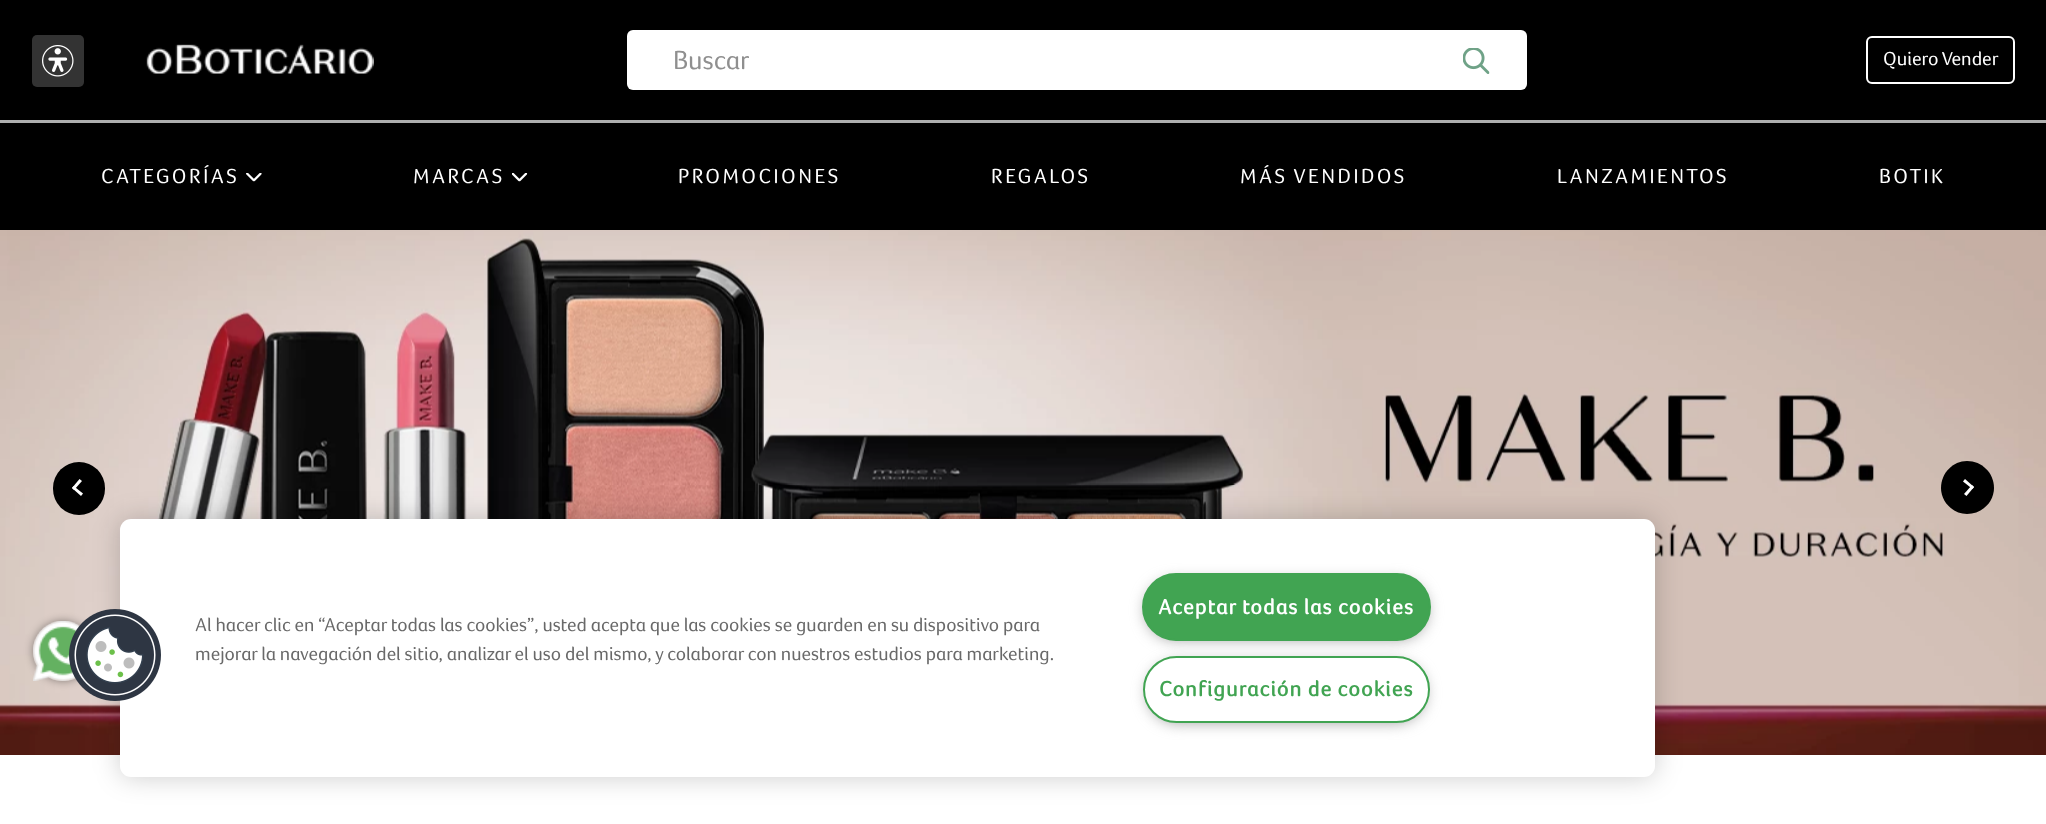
<svg xmlns="http://www.w3.org/2000/svg" width="2046" height="824" viewBox="0 0 2046 824">
  <defs>
    <clipPath id="clip1"><path d="M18 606H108V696H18ZM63 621C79.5 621 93 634.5 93 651C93 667.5 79.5 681 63 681C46.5 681 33 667.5 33 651C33 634.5 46.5 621 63 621Z" clip-rule="evenodd"/></clipPath>
  </defs>
  <rect width="100%" height="100%" fill="#fff"/>
  <path d="M0 0h2046v230H0z" fill="#000"/>
  <rect x="32" y="35" width="52" height="52" rx="5" fill="#333"/>
  <image x="42" y="45" width="32" height="32" href="img/1.png"/>
  <image x="146" y="44" width="228" height="30" href="img/2.png"/>
  <rect x="627" y="30" width="900" height="60" rx="6" fill="#fff"/>
  <image x="1463" y="48" width="27" height="26" href="img/3.png"/>
  <rect x="1867" y="37" width="147" height="46" rx="5" fill="none" stroke="#fff" stroke-width="2"/>
  <path d="M0 120h2046v3H0z" fill="#aeafaf"/>
  <image x="246" y="173" width="16" height="9" href="img/4.png"/>
  <image x="512" y="173" width="16" height="9" href="img/5.png"/>
  <image x="0" y="230" width="2046" height="525" href="img/6.png"/>
  <rect x="53" y="462" width="52" height="53" rx="26" fill="#000"/>
  <path d="M83 493.5L81 496L72 488L73.5 486Z" fill="#fff"/>
  <path d="M82 481L74 490L72 488L79.5 479Z" fill="#fff"/>
  <path d="M1967 514C1953 514 1941 502 1941 488C1941 473 1953 461 1967 461C1982 461 1994 473 1994 488C1994 502 1982 514 1967 514Z" fill="#000"/>
  <path d="M1963 481.5L1965 479L1974 487L1972.5 489Z" fill="#fff"/>
  <path d="M1964 494L1972 485L1974 487L1966.5 496Z" fill="#fff"/>
  <g clip-path="url(#clip1)">
    <rect x="33" y="621" width="60" height="60" rx="30" fill="#00000066" filter="blur(4.5px)"/>
  </g>
  <image x="33" y="621" width="48" height="60" href="img/7.png"/>
  <rect x="120" y="519" width="1535" height="258" rx="11" fill="#00000033" filter="blur(13.5px)"/>
  <rect x="120" y="519" width="1535" height="258" rx="11" fill="#fff"/>
  <image x="69" y="609" width="92" height="92" href="img/8.png"/>
  <rect x="1146" y="581" width="281" height="58" rx="29" fill="#999" filter="blur(7.5px)"/>
  <rect x="1143" y="574" width="287" height="66" rx="33" fill="#41a452" stroke="#41a452" stroke-width="2"/>
  <rect x="1148" y="663" width="277" height="59" rx="29.5" fill="#999" filter="blur(7.5px)"/>
  <rect x="1144" y="657" width="285" height="65" rx="32.5" fill="#fff" stroke="#41a452" stroke-width="2"/>
  <text x="673" y="69" font-family="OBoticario" font-size="27" fill="#8f8f8f">Buscar</text>
  <text x="1883" y="65" font-family="OBoticario" font-size="19.5" fill="#fff">Quiero Vender</text>
  <g font-family="OBoticario" font-size="21" letter-spacing="2.5" fill="#fff">
    <text x="101" y="183">CATEGORÍAS</text>
    <text x="413" y="183">MARCAS</text>
    <text x="678" y="183">PROMOCIONES</text>
    <text x="991" y="183">REGALOS</text>
    <text x="1240" y="183">MÁS VENDIDOS</text>
    <text x="1557" y="183">LANZAMIENTOS</text>
    <text x="1879" y="183">BOTIK</text>
  </g>
  <g font-family="OBoticario" font-size="19.2" fill="#696969">
    <text x="195" y="631">Al hacer clic en “Aceptar todas las cookies”, usted acepta que las cookies se guarden en su dispositivo para</text>
    <text x="195" y="660">mejorar la navegación del sitio, analizar el uso del mismo, y colaborar con nuestros estudios para marketing.</text>
  </g>
  <text x="1158" y="614" font-family="OBoticario" font-size="21.6" font-weight="bold" letter-spacing="1.1" fill="#fff">Aceptar todas las cookies</text>
  <text x="1159" y="696" font-family="OBoticario" font-size="21.6" font-weight="bold" letter-spacing="1.1" fill="#41a452">Configuración de cookies</text>
</svg>
